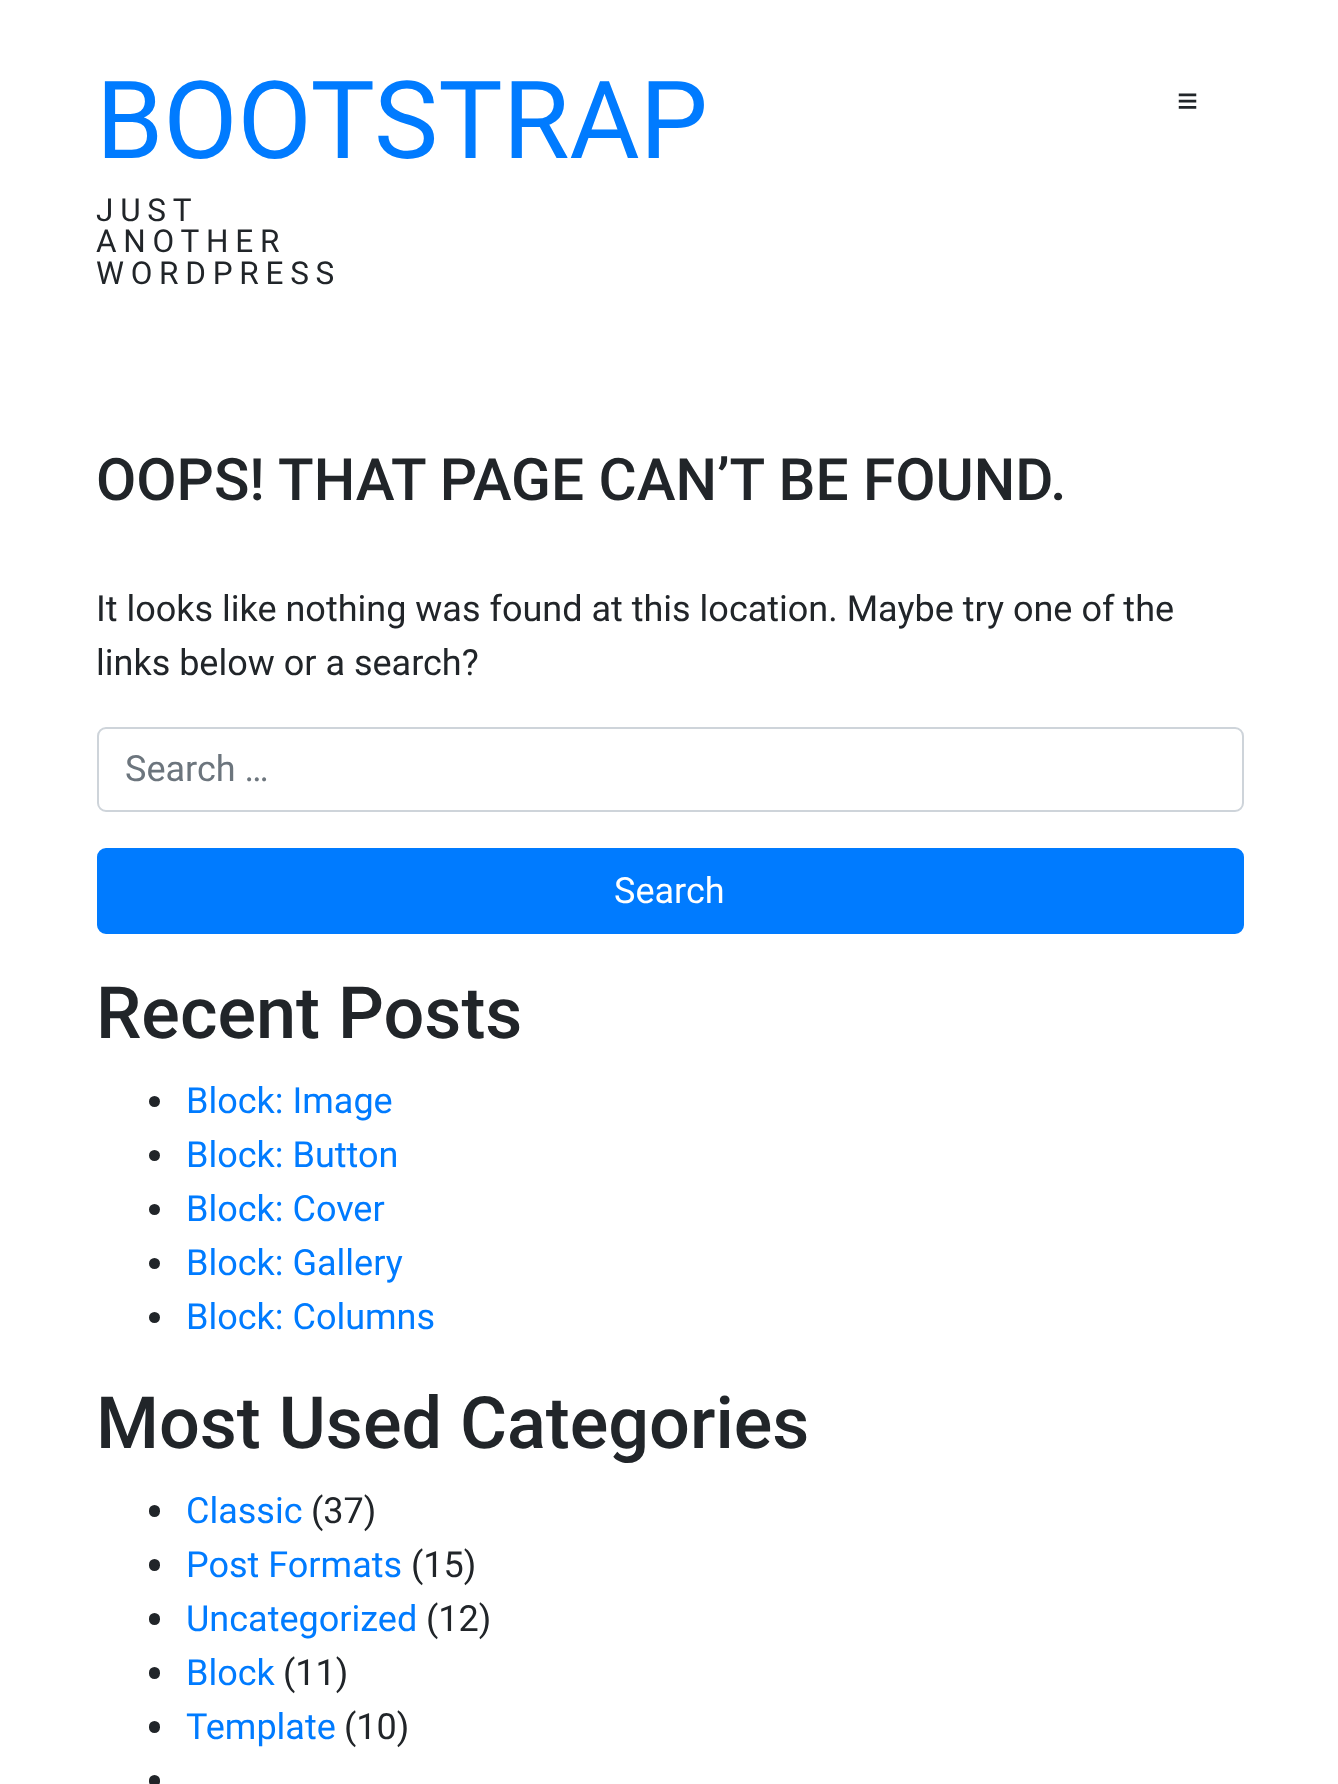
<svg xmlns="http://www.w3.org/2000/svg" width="1338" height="1784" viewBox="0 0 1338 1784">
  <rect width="100%" height="100%" fill="#fff"/>
  <rect x="98" y="728" width="1145" height="83" rx="8" fill="none" stroke="#ced4da" stroke-width="2"/>
  <rect x="98" y="849" width="1145" height="84" rx="8" fill="#007bff" stroke="#007bff" stroke-width="2"/>
  <circle cx="154.5" cy="1101.5" r="5.5" fill="#212529"/>
  <circle cx="154.5" cy="1155.5" r="5.5" fill="#212529"/>
  <circle cx="154.5" cy="1209.5" r="5.5" fill="#212529"/>
  <circle cx="154.5" cy="1263.5" r="5.5" fill="#212529"/>
  <circle cx="154.5" cy="1317.5" r="5.5" fill="#212529"/>
  <rect x="149" y="1505" width="11" height="12" rx="5.5" fill="#212529"/>
  <rect x="149" y="1559" width="11" height="12" rx="5.5" fill="#212529"/>
  <rect x="149" y="1613" width="11" height="12" rx="5.5" fill="#212529"/>
  <rect x="149" y="1667" width="11" height="12" rx="5.5" fill="#212529"/>
  <rect x="149" y="1721" width="11" height="12" rx="5.5" fill="#212529"/>
  <rect x="149" y="1775" width="11" height="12" rx="5.5" fill="#212529"/>
  <text x="96" y="158" font-family="Roboto" font-size="108" fill="#007bff">BOOTSTRAP</text>
  <g font-family="Roboto" font-size="31.5" letter-spacing="6.75" fill="#212529">
    <text x="96" y="221">JUST</text>
    <text x="96" y="252">ANOTHER</text>
    <text x="96" y="284">WORDPRESS</text>
  </g>
  <text x="1177" y="113" font-family="Liberation Sans" font-size="36" fill="#212529">≡</text>
  <text x="96" y="500" font-family="Roboto" font-size="58.5" font-weight="500" fill="#212529">OOPS! THAT PAGE CAN’T BE FOUND.</text>
  <g font-family="Roboto" font-size="36" fill="#212529">
    <text x="96" y="621">It looks like nothing was found at this location. Maybe try one of the</text>
    <text x="96" y="675">links below or a search?</text>
  </g>
  <text x="125" y="781" font-family="Roboto" font-size="36" fill="#6c757d">Search …</text>
  <text x="614" y="903" font-family="Roboto" font-size="36" fill="#fff">Search</text>
  <text x="96" y="1038" font-family="Roboto" font-size="72" font-weight="500" fill="#212529">Recent Posts</text>
  <g font-family="Roboto" font-size="36" fill="#007bff">
    <text x="186" y="1113">Block: Image</text>
    <text x="186" y="1167">Block: Button</text>
    <text x="186" y="1221">Block: Cover</text>
    <text x="186" y="1275">Block: Gallery</text>
    <text x="186" y="1329">Block: Columns</text>
  </g>
  <text x="96" y="1448" font-family="Roboto" font-size="72" font-weight="500" fill="#212529">Most Used Categories</text>
  <text x="186" y="1523" font-family="Roboto" font-size="36" fill="#007bff">Classic</text>
  <text x="311" y="1523" font-family="Roboto" font-size="36" fill="#212529">(37)</text>
  <text x="186" y="1577" font-family="Roboto" font-size="36" fill="#007bff">Post Formats</text>
  <text x="411" y="1577" font-family="Roboto" font-size="36" fill="#212529">(15)</text>
  <text x="186" y="1631" font-family="Roboto" font-size="36" fill="#007bff">Uncategorized</text>
  <text x="426" y="1631" font-family="Roboto" font-size="36" fill="#212529">(12)</text>
  <text x="186" y="1685" font-family="Roboto" font-size="36" fill="#007bff">Block</text>
  <text x="283" y="1685" font-family="Roboto" font-size="36" fill="#212529">(11)</text>
  <text x="186" y="1739" font-family="Roboto" font-size="36" fill="#007bff">Template</text>
  <text x="344" y="1739" font-family="Roboto" font-size="36" fill="#212529">(10)</text>
</svg>
